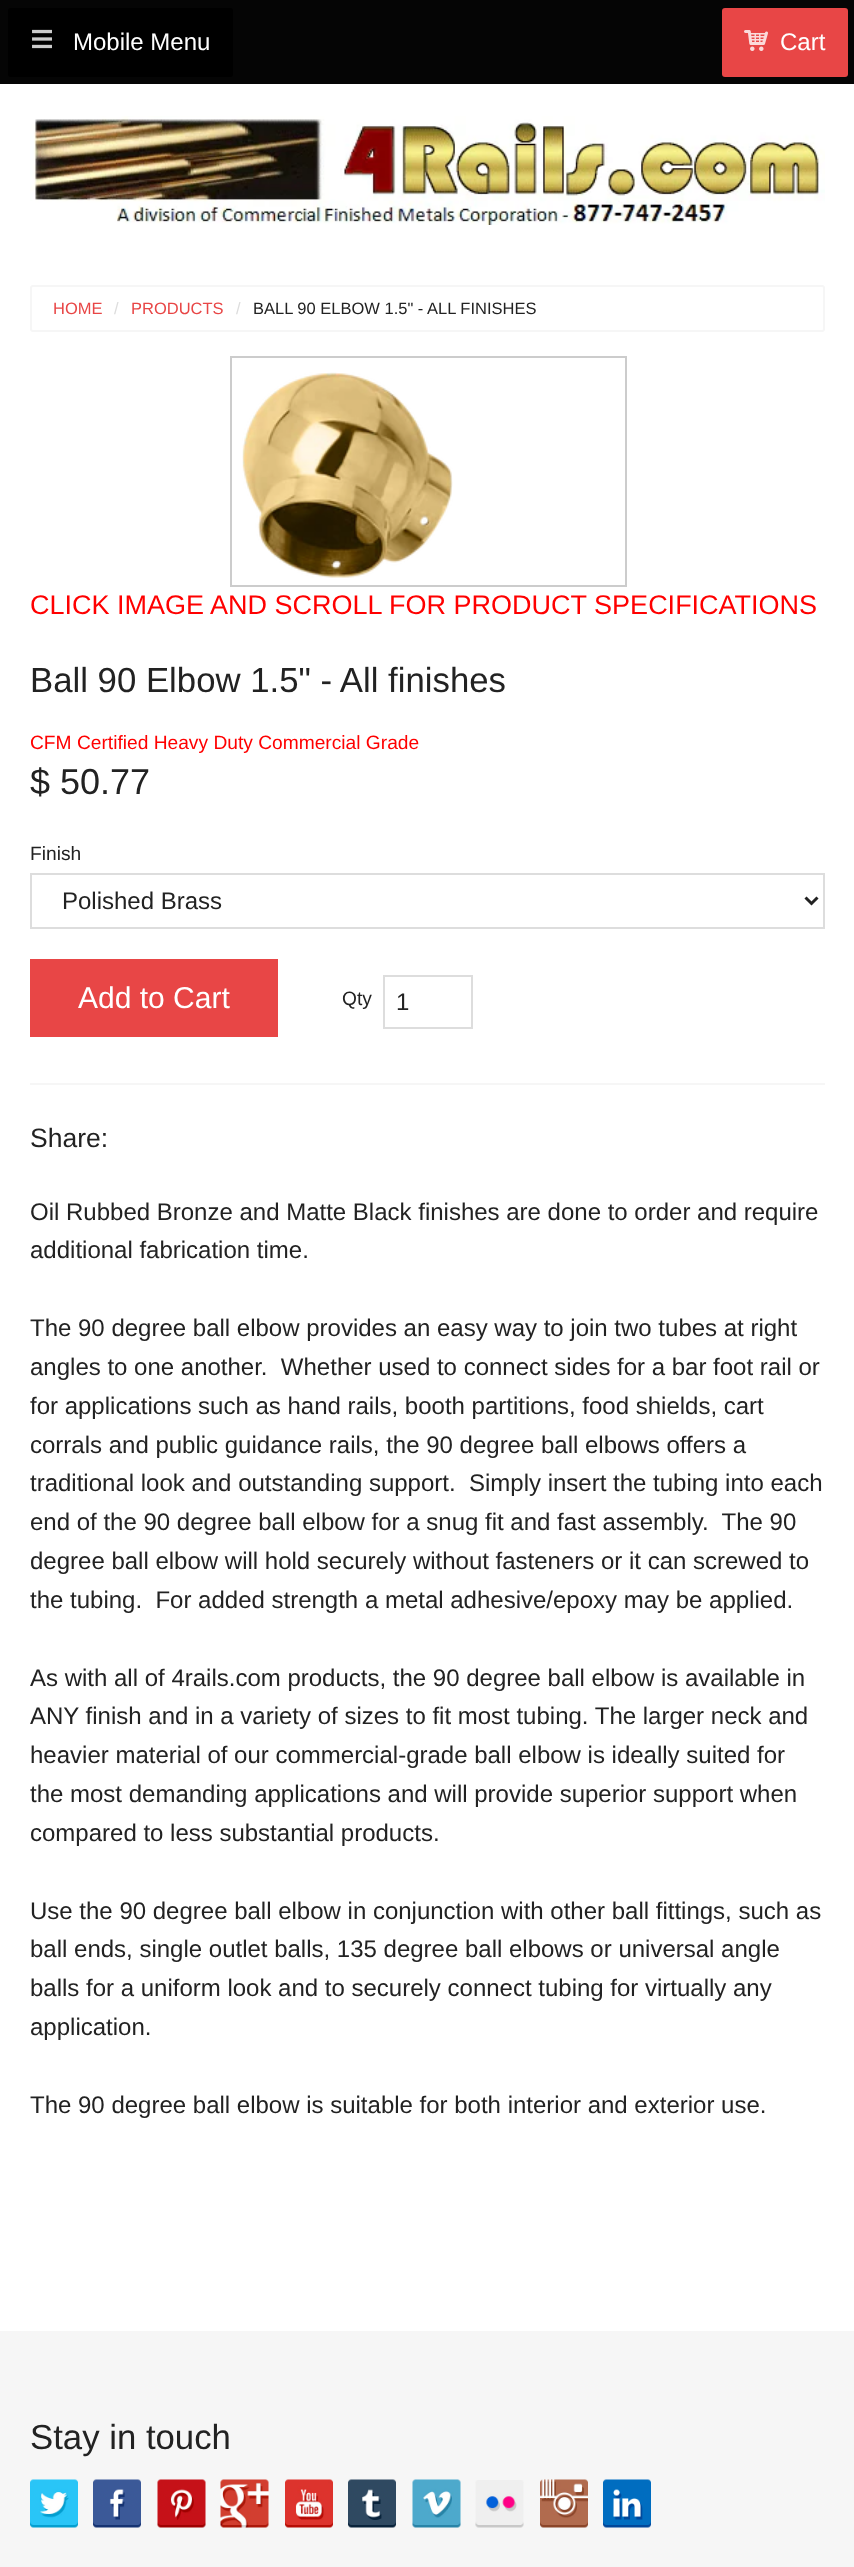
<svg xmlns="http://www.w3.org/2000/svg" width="854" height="2567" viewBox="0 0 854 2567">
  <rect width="100%" height="100%" fill="#fff"/>
  <path d="M0 0h854v84H0z" fill="#050505"/>
  <rect x="8" y="8" width="225" height="69" rx="3" fill="#000"/>
  <image x="32" y="29" width="20" height="20" href="img/1.png"/>
  <rect x="722" y="8" width="126" height="69" rx="3" fill="#e84646"/>
  <image x="744" y="30" width="24" height="21" href="img/2.png"/>
  <image x="30" y="116" width="795" height="109" href="img/3.png"/>
  <rect x="31" y="286" width="793" height="45" rx="2" fill="none" stroke="#f6f6f6" stroke-width="2"/>
  <path d="M231 357h395v229H231z" fill="none" stroke="#ccc" stroke-width="2"/>
  <image x="242" y="372" width="211" height="206" href="img/4.png"/>
  <path d="M31 874h793v54H31z" fill="none" stroke="#ddd" stroke-width="2"/>
  <path d="M805.5 897.5L811.5 903.5L817.5 897.5" fill="none" stroke="#222" stroke-width="3"/>
  <path d="M30 959h248v78H30z" fill="#e84646"/>
  <path d="M384 976h88v52H384z" fill="none" stroke="#ddd" stroke-width="2"/>
  <path d="M30 1083h795v2H30z" fill="#f6f6f6"/>
  <path d="M0 2331h854v236H0z" fill="#f6f6f6"/>
  <image x="30" y="2479" width="48" height="49" href="img/5.png"/>
  <image x="93" y="2479" width="48" height="49" href="img/6.png"/>
  <image x="157" y="2479" width="49" height="49" href="img/7.png"/>
  <image x="220" y="2479" width="49" height="49" href="img/8.png"/>
  <image x="285" y="2479" width="48" height="49" href="img/9.png"/>
  <image x="348" y="2479" width="48" height="49" href="img/10.png"/>
  <image x="412" y="2479" width="49" height="49" href="img/11.png"/>
  <image x="475" y="2480" width="49" height="48" href="img/12.png"/>
  <image x="540" y="2479" width="48" height="49" href="img/13.png"/>
  <image x="603" y="2479" width="48" height="49" href="img/14.png"/>
  <g font-family="Liberation Sans" font-size="24" fill="#fff">
    <text x="73" y="50">Mobile Menu</text>
    <text x="780" y="50">Cart</text>
  </g>
  <text x="53" y="314" font-family="Liberation Sans" font-size="16.5" fill="#e84646">HOME</text>
  <text x="114" y="314" font-family="Liberation Sans" font-size="16.5" fill="#ddd">/</text>
  <text x="131" y="314" font-family="Liberation Sans" font-size="16.5" fill="#e84646">PRODUCTS</text>
  <text x="236" y="314" font-family="Liberation Sans" font-size="16.5" fill="#ddd">/</text>
  <text x="253" y="314" font-family="Liberation Sans" font-size="16.5" fill="#222">BALL 90 ELBOW 1.5" - ALL FINISHES</text>
  <text x="30" y="614" font-family="Liberation Sans" font-size="27" fill="#f00">CLICK IMAGE AND SCROLL FOR PRODUCT SPECIFICATIONS</text>
  <text x="30" y="692" font-family="Liberation Sans" font-size="34.75" fill="#222">Ball 90 Elbow 1.5" - All finishes</text>
  <text x="30" y="749" font-family="Liberation Sans" font-size="19.2" fill="#f00">CFM Certified Heavy Duty Commercial Grade</text>
  <text x="30" y="794" font-family="Liberation Sans" font-size="36" fill="#222">$ 50.77</text>
  <text x="30" y="860" font-family="Liberation Sans" font-size="19.2" fill="#222">Finish</text>
  <text x="62" y="909" font-family="Liberation Sans" font-size="24" fill="#222">Polished Brass</text>
  <text x="78" y="1008" font-family="Liberation Sans" font-size="30" fill="#fff">Add to Cart</text>
  <text x="342" y="1005" font-family="Liberation Sans" font-size="19.2" fill="#222">Qty</text>
  <text x="396" y="1010" font-family="Liberation Sans" font-size="24" fill="#222">1</text>
  <text x="30" y="1147" font-family="Liberation Sans" font-size="26.5" fill="#222">Share:</text>
  <g font-family="Liberation Sans" font-size="24" fill="#222">
    <text x="30" y="1220">Oil Rubbed Bronze and Matte Black finishes are done to order and require</text>
    <text x="30" y="1258">additional fabrication time.</text>
    <text x="30" y="1336">The 90 degree ball elbow provides an easy way to join two tubes at right</text>
    <text x="30" y="1375" xml:space="preserve">angles to one another.  Whether used to connect sides for a bar foot rail or</text>
    <text x="30" y="1414">for applications such as hand rails, booth partitions, food shields, cart</text>
    <text x="30" y="1453">corrals and public guidance rails, the 90 degree ball elbows offers a</text>
    <text x="30" y="1491" xml:space="preserve">traditional look and outstanding support.  Simply insert the tubing into each</text>
    <text x="30" y="1530" xml:space="preserve">end of the 90 degree ball elbow for a snug fit and fast assembly.  The 90</text>
    <text x="30" y="1569">degree ball elbow will hold securely without fasteners or it can screwed to</text>
    <text x="30" y="1608" xml:space="preserve">the tubing.  For added strength a metal adhesive/epoxy may be applied.</text>
    <text x="30" y="1686">As with all of 4rails.com products, the 90 degree ball elbow is available in</text>
    <text x="30" y="1724">ANY finish and in a variety of sizes to fit most tubing. The larger neck and</text>
    <text x="30" y="1763">heavier material of our commercial-grade ball elbow is ideally suited for</text>
    <text x="30" y="1802">the most demanding applications and will provide superior support when</text>
    <text x="30" y="1841">compared to less substantial products.</text>
    <text x="30" y="1919">Use the 90 degree ball elbow in conjunction with other ball fittings, such as</text>
    <text x="30" y="1957">ball ends, single outlet balls, 135 degree ball elbows or universal angle</text>
    <text x="30" y="1996">balls for a uniform look and to securely connect tubing for virtually any</text>
    <text x="30" y="2035">application.</text>
    <text x="30" y="2113">The 90 degree ball elbow is suitable for both interior and exterior use.</text>
  </g>
  <text x="30" y="2449" font-family="Liberation Sans" font-size="34.75" fill="#222">Stay in touch</text>
</svg>
